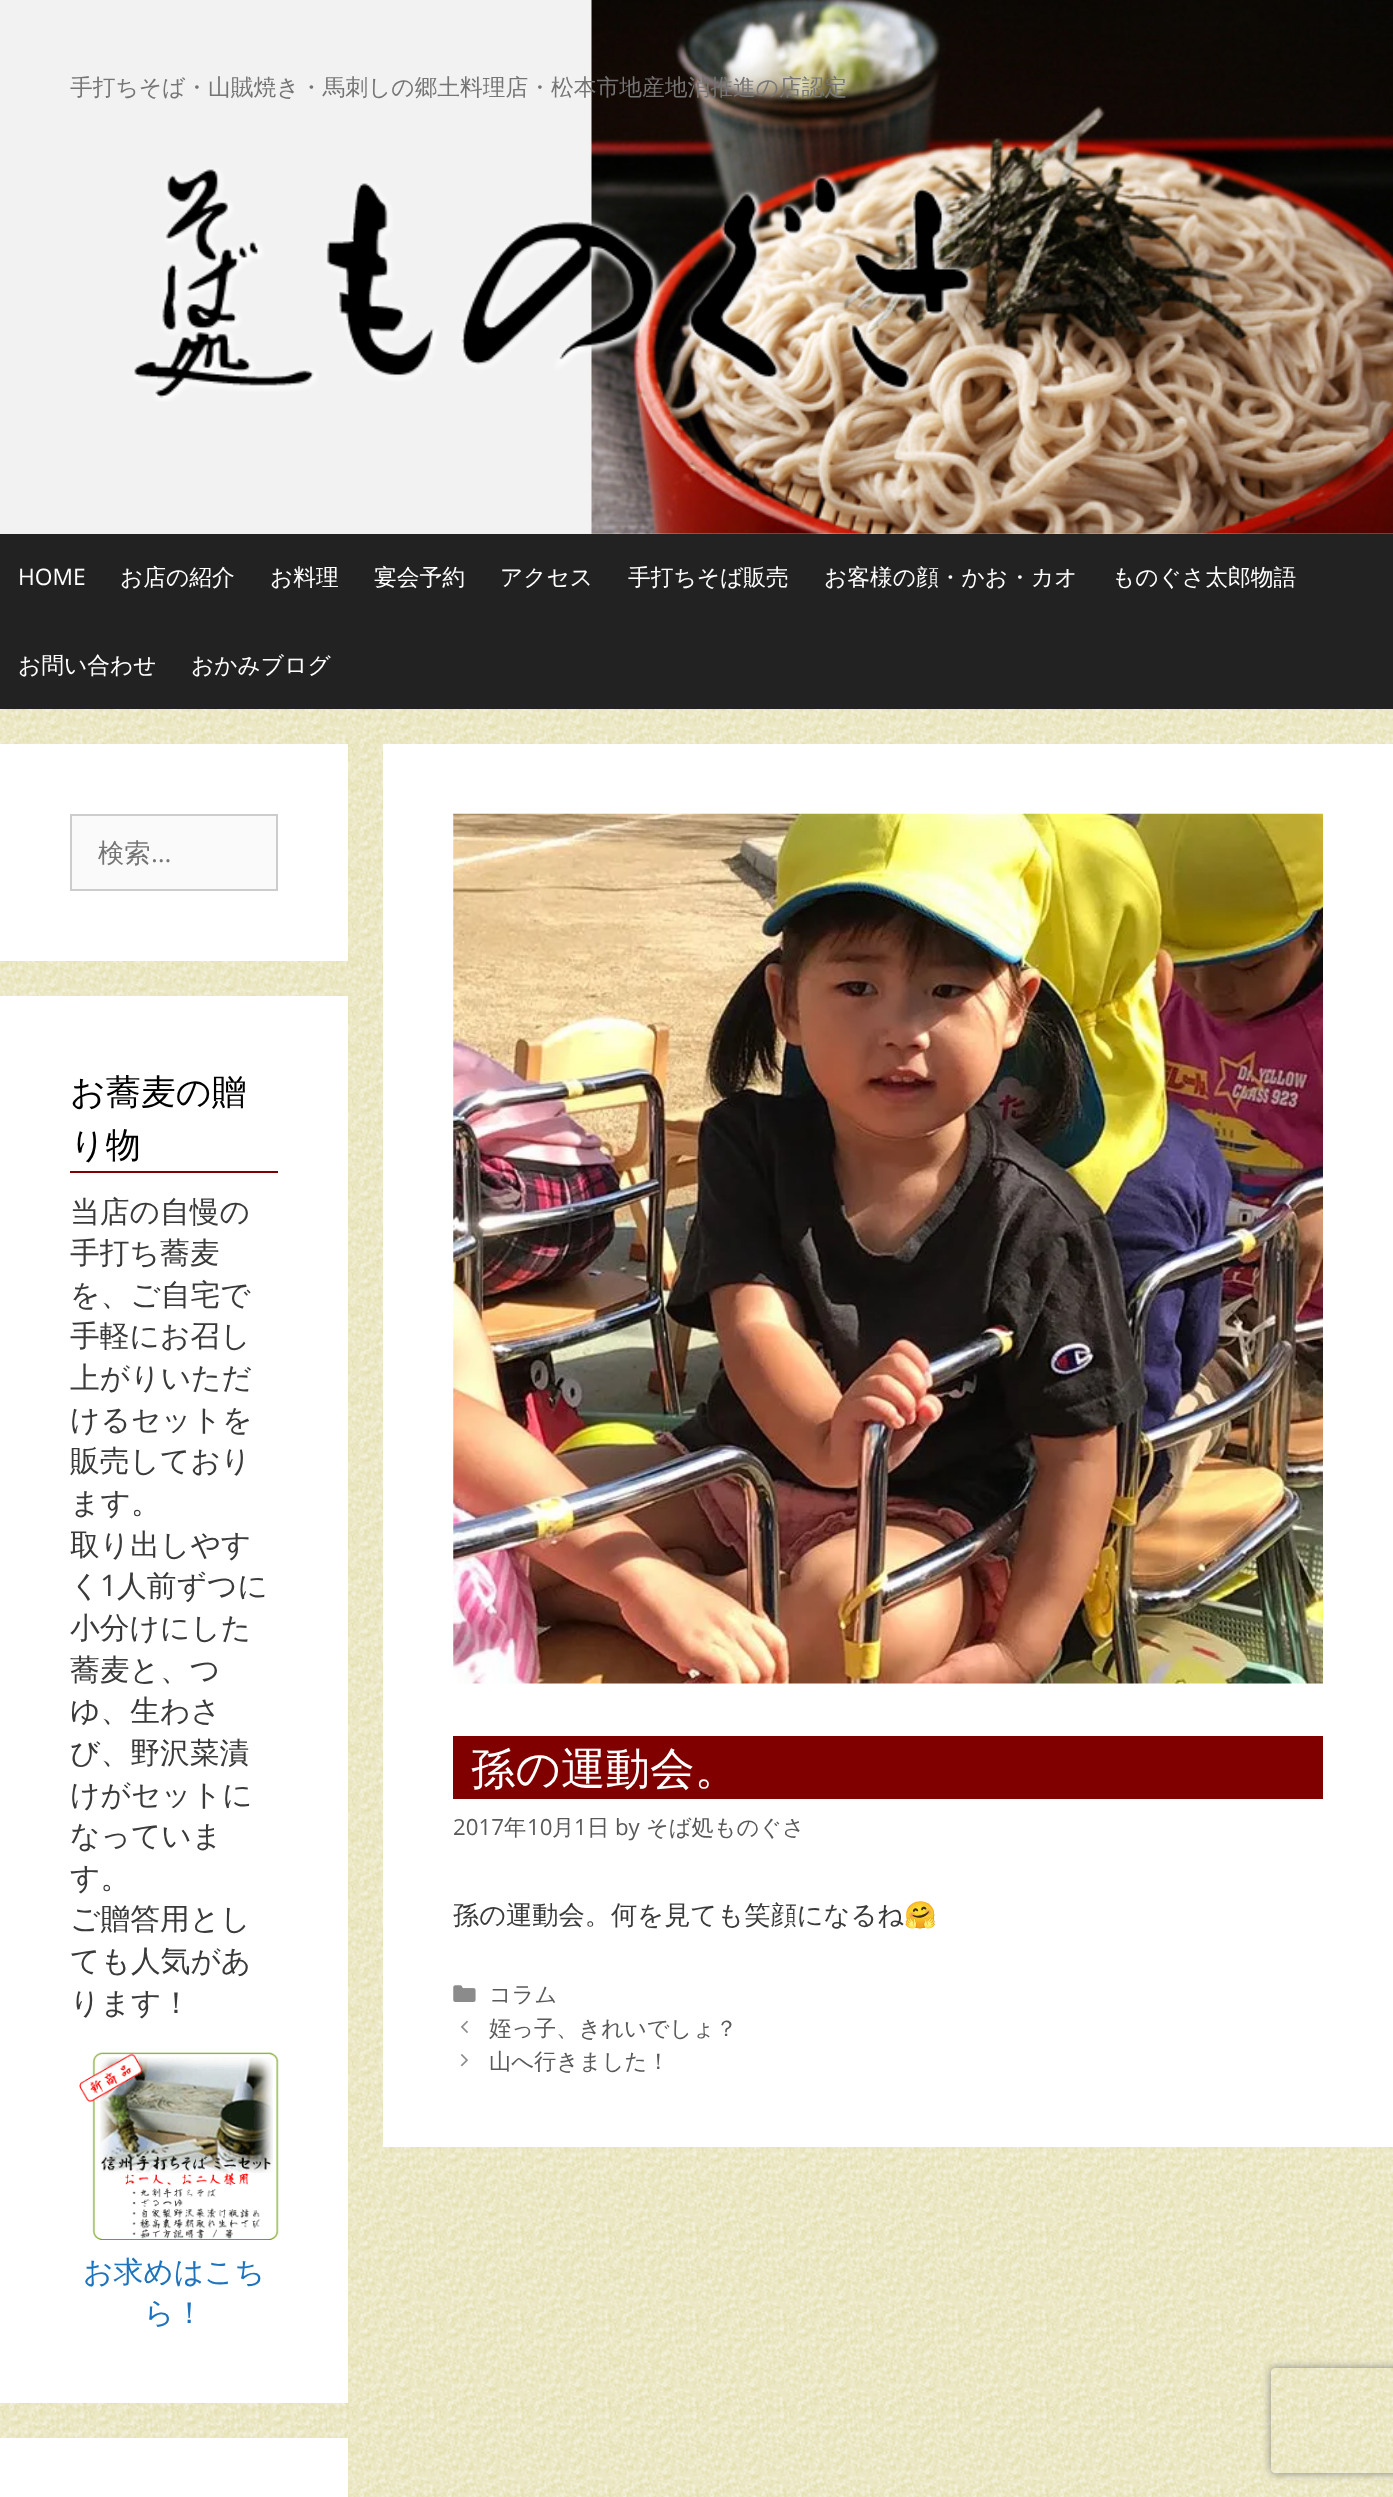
<svg xmlns="http://www.w3.org/2000/svg" width="1393" height="2497" viewBox="0 0 1393 2497">
  <defs>
    <clipPath id="clip1"><path d="M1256 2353H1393V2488H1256ZM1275 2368H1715C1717 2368 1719 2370 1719 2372V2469C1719 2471 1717 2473 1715 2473H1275C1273 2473 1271 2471 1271 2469V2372C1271 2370 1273 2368 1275 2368Z" clip-rule="evenodd"/></clipPath>
  </defs>
  <rect width="100%" height="100%" fill="#fff"/>
  <image x="0" y="709" width="1393" height="1788" href="img/1.png"/>
  <path d="M0 0h1393v534H0z" fill="#f2f2f2"/>
  <image x="591" y="0" width="802" height="534" href="img/2.png"/>
  <image x="133" y="168" width="844" height="234" href="img/3.png"/>
  <path d="M0 534h1393v175H0z" fill="#222"/>
  <path d="M0 744h348v217H0z" fill="#fff"/>
  <path d="M71 815h206v75H71z" fill="#fafafa" stroke="#ccc" stroke-width="2"/>
  <path d="M0 996h348v1407H0z" fill="#fff"/>
  <path d="M70 1171h208v2H70z" fill="#800000"/>
  <image x="79" y="2052" width="200" height="188" href="img/4.png"/>
  <path d="M0 2438h348v59H0z" fill="#fff"/>
  <path d="M383 744h1010v1403H383z" fill="#fff"/>
  <image x="453" y="813" width="870" height="871" href="img/5.png"/>
  <path d="M453 1736h870v63H453z" fill="#800000"/>
  <image x="453" y="1985" width="23" height="17" href="img/6.png"/>
  <image x="460" y="2020" width="8" height="13" href="img/7.png"/>
  <image x="460" y="2054" width="8" height="13" href="img/8.png"/>
  <g clip-path="url(#clip1)">
    <rect x="1271" y="2368" width="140" height="105" rx="4" fill="#808080" filter="blur(4.5px)"/>
  </g>
  <text x="70" y="95" font-family="WenQuanYi Zen Hei" font-size="22.75" font-weight="500" fill="#757575">手打ちそば・山賊焼き・馬刺しの郷土料理店・松本市地産地消推進の店認定</text>
  <text x="18" y="585" font-family="Open Sans" font-size="22.75" fill="#fff">HOME</text>
  <g font-family="WenQuanYi Zen Hei" font-size="22.75" font-weight="500" fill="#fff">
    <text x="120" y="585">お店の紹介</text>
    <text x="270" y="585">お料理</text>
    <text x="374" y="585">宴会予約</text>
    <text x="500" y="585">アクセス</text>
    <text x="628" y="585">手打ちそば販売</text>
    <text x="824" y="585">お客様の顔・かお・カオ</text>
    <text x="1112" y="585">ものぐさ太郎物語</text>
    <text x="18" y="673">お問い合わせ</text>
    <text x="191" y="673">おかみブログ</text>
  </g>
  <text x="98" y="862" font-family="WenQuanYi Zen Hei" font-size="26.25" font-weight="500" fill="#757575">検索</text>
  <text x="151" y="862" font-family="Open Sans" font-size="26.25" fill="#757575">…</text>
  <g font-family="WenQuanYi Zen Hei" font-size="35" font-weight="500" fill="#000">
    <text x="70" y="1104">お蕎麦の贈</text>
    <text x="70" y="1157">り物</text>
  </g>
  <g font-family="WenQuanYi Zen Hei" font-size="29.75" font-weight="500" fill="#3a3a3a">
    <text x="70" y="1222">当店の自慢の</text>
    <text x="70" y="1263">手打ち蕎麦</text>
    <text x="70" y="1305">を、ご自宅で</text>
    <text x="70" y="1346">手軽にお召し</text>
    <text x="70" y="1388">上がりいただ</text>
    <text x="70" y="1430">けるセットを</text>
    <text x="70" y="1471">販売しており</text>
    <text x="70" y="1513">ます。</text>
    <text x="70" y="1555">取り出しやす</text>
    <text x="70" y="1596">く</text>
  </g>
  <text x="100" y="1596" font-family="Open Sans" font-size="29.75" fill="#3a3a3a">1</text>
  <g font-family="WenQuanYi Zen Hei" font-size="29.75" font-weight="500" fill="#3a3a3a">
    <text x="117" y="1596">人前ずつに</text>
    <text x="70" y="1638">小分けにした</text>
    <text x="70" y="1680">蕎麦と、つ</text>
    <text x="70" y="1721">ゆ、生わさ</text>
    <text x="70" y="1763">び、野沢菜漬</text>
    <text x="70" y="1805">けがセットに</text>
    <text x="70" y="1846">なっていま</text>
    <text x="70" y="1888">す。</text>
    <text x="70" y="1929">ご贈答用とし</text>
    <text x="70" y="1971">ても人気があ</text>
    <text x="70" y="2013">ります！</text>
  </g>
  <g font-family="WenQuanYi Zen Hei" font-size="29.75" font-weight="500" fill="#1e73be">
    <text x="83" y="2282">お求めはこち</text>
    <text x="144" y="2323">ら！</text>
  </g>
  <text x="471" y="1784" font-family="WenQuanYi Zen Hei" font-size="44.5" font-weight="500" fill="#fff">孫の運動会。</text>
  <text x="453" y="1835" font-family="Open Sans" font-size="22.25" fill="#595959">2017</text>
  <text x="504" y="1835" font-family="WenQuanYi Zen Hei" font-size="22.25" font-weight="500" fill="#595959">年</text>
  <text x="527" y="1835" font-family="Open Sans" font-size="22.25" fill="#595959">10</text>
  <text x="552" y="1835" font-family="WenQuanYi Zen Hei" font-size="22.25" font-weight="500" fill="#595959">月</text>
  <text x="574" y="1835" font-family="Open Sans" font-size="22.25" fill="#595959">1</text>
  <text x="587" y="1835" font-family="WenQuanYi Zen Hei" font-size="22.25" font-weight="500" fill="#595959">日</text>
  <text x="615" y="1835" font-family="Open Sans" font-size="22.25" fill="#595959">by</text>
  <text x="646" y="1835" font-family="WenQuanYi Zen Hei" font-size="22.25" font-weight="500" fill="#595959">そば処ものぐさ</text>
  <text x="453" y="1924" font-family="WenQuanYi Zen Hei" font-size="26.25" font-weight="500" fill="#3a3a3a">孫の運動会。何を見ても笑顔になるね</text>
  <text x="904" y="1924" font-family="Noto Color Emoji" font-size="26.25" fill="#3a3a3a">🤗</text>
  <g font-family="WenQuanYi Zen Hei" font-size="22.25" font-weight="500" fill="#595959">
    <text x="489" y="2002">コラム</text>
    <text x="489" y="2036">姪っ子、きれいでしょ？</text>
    <text x="489" y="2069">山へ行きました！</text>
  </g>
</svg>
